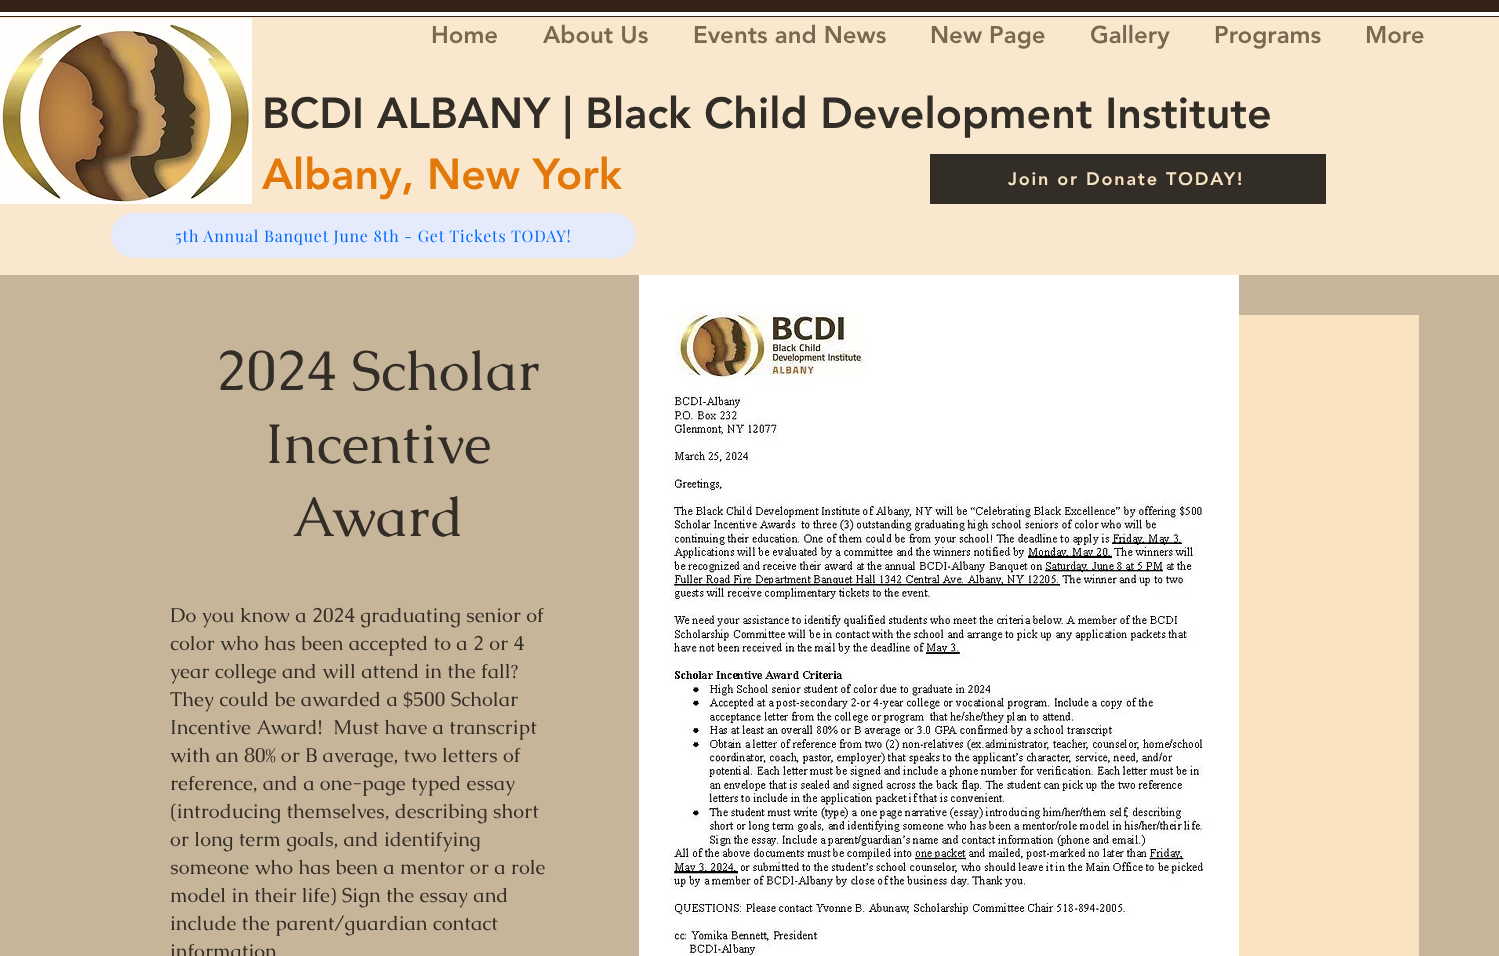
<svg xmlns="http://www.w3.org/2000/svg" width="1499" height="956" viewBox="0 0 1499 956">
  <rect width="100%" height="100%" fill="#c7b59a"/>
  <path d="M0 0h1499v17H0z" fill="#342216"/>
  <path d="M0 12h1499v4H0z" fill="#fff"/>
  <path d="M0 17h1499v258H0z" fill="#f9e8ce"/>
  <path d="M930 154h396v50H930z" fill="#322d26"/>
  <image x="0" y="18" width="252" height="186" href="img/1.png"/>
  <rect x="111" y="213" width="525" height="45" rx="22.5" fill="#e5ebfa"/>
  <path d="M1239 315h180v641H1239z" fill="#f9e2c0"/>
  <image x="639" y="275" width="600" height="681" href="img/2.png"/>
  <g font-family="'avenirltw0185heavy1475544'" font-size="24" font-weight="900" fill="#79694f">
    <text x="431" y="43">Home</text>
    <text x="543" y="43">About Us</text>
    <text x="693" y="43">Events and News</text>
    <text x="930" y="43">New Page</text>
    <text x="1090" y="43">Gallery</text>
    <text x="1214" y="43">Programs</text>
    <text x="1365" y="43">More</text>
  </g>
  <text x="1008" y="185" font-family="'avenirltw0185heavy1475544'" font-size="18" font-weight="900" letter-spacing="1.8" fill="#f9e2c0">Join or Donate TODAY!</text>
  <text x="262" y="128" font-family="'avenirltw0185heavy1475544'" font-size="43" font-weight="900" fill="#322d26">BCDI ALBANY | Black Child Development Institute</text>
  <text x="262" y="189" font-family="'avenirltw0185heavy1475544'" font-size="43" font-weight="900" fill="#e4790b">Albany, New York</text>
  <text x="175" y="242" font-family="Playfair Display" font-size="16" letter-spacing="0.8" fill="#0069ff">5th Annual Banquet June 8th - Get Tickets TODAY!</text>
  <g font-family="Caudex" font-size="56" fill="#322d26">
    <text x="216" y="390">2024 Scholar</text>
    <text x="265" y="463">Incentive</text>
    <text x="292" y="536">Award</text>
  </g>
  <g font-family="Caudex" font-size="20" fill="#322d26">
    <text x="170" y="622">Do you know a 2024 graduating senior of</text>
    <text x="170" y="650">color who has been accepted to a 2 or 4</text>
    <text x="170" y="678">year college and will attend in the fall?</text>
    <text x="170" y="706">They could be awarded a $500 Scholar</text>
    <text x="170" y="734" xml:space="preserve">Incentive Award!  Must have a transcript</text>
    <text x="170" y="762">with an 80% or B average, two letters of</text>
    <text x="170" y="790">reference, and a one-page typed essay</text>
    <text x="170" y="818">(introducing themselves, describing short</text>
    <text x="170" y="846">or long term goals, and identifying</text>
    <text x="170" y="874">someone who has been a mentor or a role</text>
    <text x="170" y="902">model in their life) Sign the essay and</text>
    <text x="170" y="930">include the parent/guardian contact</text>
    <text x="170" y="958">information</text>
  </g>
</svg>
